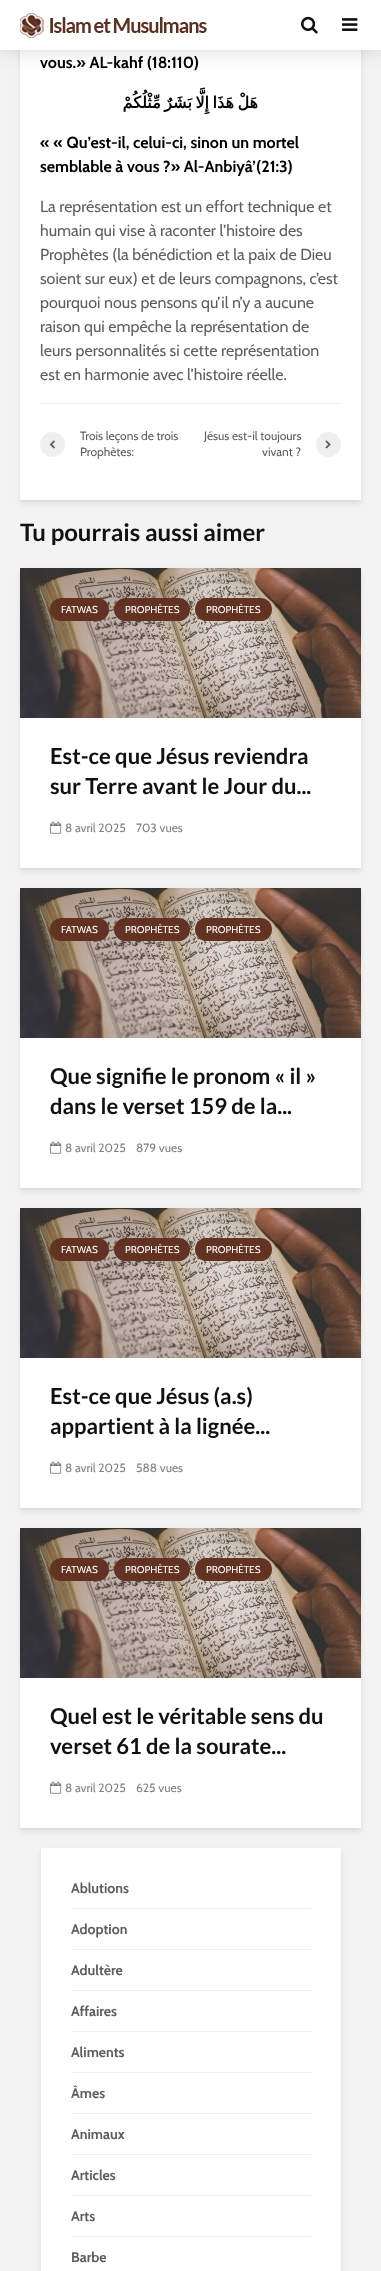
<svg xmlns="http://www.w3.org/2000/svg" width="381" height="2271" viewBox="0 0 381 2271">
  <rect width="100%" height="100%" fill="#f3f3f3"/>
  <path d="M20 -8h341v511H20z" fill="#0001011a" filter="blur(2.5px)"/>
  <path d="M20 50h341v450H20z" fill="#fff"/>
  <path d="M0 0h381v50H0z" fill="#00000026" filter="blur(10px)"/>
  <path d="M0 0h381v50H0z" fill="#fff"/>
  <image x="20" y="13" width="187" height="25" href="img/1.png"/>
  <image x="301" y="16" width="17" height="18" href="img/2.png"/>
  <image x="342" y="18" width="16" height="13" href="img/3.png"/>
  <path d="M40 403h301v1H40z" fill="#efefef"/>
  <circle cx="52.5" cy="444.5" r="12.5" fill="#efefef"/>
  <image x="49" y="440" width="6" height="9" href="img/4.png"/>
  <circle cx="328.5" cy="444.5" r="12.5" fill="#efefef"/>
  <image x="325" y="440" width="6" height="9" href="img/5.png"/>
  <path d="M20 571h341v300H20z" fill="#0001011a" filter="blur(2.5px)"/>
  <path d="M20 718h341v150H20z" fill="#fff"/>
  <image x="20" y="568" width="341" height="150" href="img/6.png"/>
  <rect x="50" y="598" width="59" height="23" rx="11.5" fill="#623323"/>
  <rect x="114" y="598" width="76" height="23" rx="11.5" fill="#623323"/>
  <rect x="195" y="598" width="77" height="23" rx="11.5" fill="#623323"/>
  <image x="50" y="821" width="12" height="13" href="img/7.png"/>
  <path d="M20 891h341v300H20z" fill="#0001011a" filter="blur(2.5px)"/>
  <path d="M20 1038h341v150H20z" fill="#fff"/>
  <image x="20" y="888" width="341" height="150" href="img/6.png"/>
  <rect x="50" y="918" width="59" height="23" rx="11.5" fill="#623323"/>
  <rect x="114" y="918" width="76" height="23" rx="11.5" fill="#623323"/>
  <rect x="195" y="918" width="77" height="23" rx="11.5" fill="#623323"/>
  <image x="50" y="1141" width="12" height="13" href="img/7.png"/>
  <path d="M20 1211h341v300H20z" fill="#0001011a" filter="blur(2.5px)"/>
  <path d="M20 1358h341v150H20z" fill="#fff"/>
  <image x="20" y="1208" width="341" height="150" href="img/6.png"/>
  <rect x="50" y="1238" width="59" height="23" rx="11.5" fill="#623323"/>
  <rect x="114" y="1238" width="76" height="23" rx="11.5" fill="#623323"/>
  <rect x="195" y="1238" width="77" height="23" rx="11.5" fill="#623323"/>
  <image x="50" y="1461" width="12" height="13" href="img/7.png"/>
  <path d="M20 1531h341v300H20z" fill="#0001011a" filter="blur(2.5px)"/>
  <path d="M20 1678h341v150H20z" fill="#fff"/>
  <image x="20" y="1528" width="341" height="150" href="img/6.png"/>
  <rect x="50" y="1558" width="59" height="23" rx="11.5" fill="#623323"/>
  <rect x="114" y="1558" width="76" height="23" rx="11.5" fill="#623323"/>
  <rect x="195" y="1558" width="77" height="23" rx="11.5" fill="#623323"/>
  <image x="50" y="1781" width="12" height="13" href="img/7.png"/>
  <path d="M41 1851h300v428H41z" fill="#0001011a" filter="blur(2.5px)"/>
  <path d="M41 1848h300v423H41z" fill="#fff"/>
  <path d="M71 1908h240v1H71z" fill="#efefef"/>
  <path d="M71 1949h240v1H71z" fill="#efefef"/>
  <path d="M71 1990h240v1H71z" fill="#efefef"/>
  <path d="M71 2031h240v1H71z" fill="#efefef"/>
  <path d="M71 2072h240v1H71z" fill="#efefef"/>
  <path d="M71 2113h240v1H71z" fill="#efefef"/>
  <path d="M71 2154h240v1H71z" fill="#efefef"/>
  <path d="M71 2195h240v1H71z" fill="#efefef"/>
  <path d="M71 2236h240v1H71z" fill="#efefef"/>
  <text x="40" y="68" font-family="Cabin" font-size="16" font-weight="bold" fill="#000">vous.» AL-kahf (18:110)</text>
  <text x="258" y="108" word-spacing="-1.5" font-family="DejaVu Sans" font-size="16" font-weight="bold" direction="rtl" fill="#000">هَلْ هَذَا إِلَّا بَشَرٌ مِّثْلُكُمْ</text>
  <g font-family="Cabin" font-size="16" font-weight="bold" fill="#000">
    <text x="40" y="148">« « Qu’est-il, celui-ci, sinon un mortel</text>
    <text x="40" y="172">semblable à vous ?» Al-Anbiyâ’(21:3)</text>
  </g>
  <g font-family="Cabin" font-size="16" fill="#5e5e5e">
    <text x="40" y="212">La représentation est un effort technique et</text>
    <text x="40" y="236">humain qui vise à raconter l’histoire des</text>
    <text x="40" y="260">Prophètes (la bénédiction et la paix de Dieu</text>
    <text x="40" y="284">soient sur eux) et de leurs compagnons, c’est</text>
    <text x="40" y="308">pourquoi nous pensons qu’il n’y a aucune</text>
    <text x="40" y="332">raison qui empêche la représentation de</text>
    <text x="40" y="356">leurs personnalités si cette représentation</text>
    <text x="40" y="380">est en harmonie avec l’histoire réelle.</text>
  </g>
  <g font-family="Cabin" font-size="12" fill="#5e5e5e">
    <text x="80" y="440">Trois leçons de trois</text>
    <text x="80" y="456">Prophètes:</text>
    <text x="204" y="440">Jésus est-il toujours</text>
    <text x="262" y="456">vivant ?</text>
  </g>
  <text x="20" y="541" font-family="Lato" font-size="24" font-weight="bold" fill="#111">Tu pourrais aussi aimer</text>
  <g font-family="Cabin" font-size="10" fill="#fff">
    <text x="61" y="613">FATWAS</text>
    <text x="125" y="613">PROPHÈTES</text>
    <text x="206" y="613">PROPHÈTES</text>
  </g>
  <g font-family="Lato" font-size="22" font-weight="bold" fill="#111">
    <text x="50" y="764">Est-ce que Jésus reviendra</text>
    <text x="50" y="794">sur Terre avant le Jour du...</text>
  </g>
  <g font-family="Cabin" font-size="12" fill="#818181">
    <text x="65" y="832">8 avril 2025</text>
    <text x="136" y="832">703 vues</text>
  </g>
  <g font-family="Cabin" font-size="10" fill="#fff">
    <text x="61" y="933">FATWAS</text>
    <text x="125" y="933">PROPHÈTES</text>
    <text x="206" y="933">PROPHÈTES</text>
  </g>
  <g font-family="Lato" font-size="22" font-weight="bold" fill="#111">
    <text x="50" y="1084">Que signifie le pronom « il »</text>
    <text x="50" y="1114">dans le verset 159 de la...</text>
  </g>
  <g font-family="Cabin" font-size="12" fill="#818181">
    <text x="65" y="1152">8 avril 2025</text>
    <text x="136" y="1152">879 vues</text>
  </g>
  <g font-family="Cabin" font-size="10" fill="#fff">
    <text x="61" y="1253">FATWAS</text>
    <text x="125" y="1253">PROPHÈTES</text>
    <text x="206" y="1253">PROPHÈTES</text>
  </g>
  <g font-family="Lato" font-size="22" font-weight="bold" fill="#111">
    <text x="50" y="1404">Est-ce que Jésus (a.s)</text>
    <text x="50" y="1434">appartient à la lignée...</text>
  </g>
  <g font-family="Cabin" font-size="12" fill="#818181">
    <text x="65" y="1472">8 avril 2025</text>
    <text x="136" y="1472">588 vues</text>
  </g>
  <g font-family="Cabin" font-size="10" fill="#fff">
    <text x="61" y="1573">FATWAS</text>
    <text x="125" y="1573">PROPHÈTES</text>
    <text x="206" y="1573">PROPHÈTES</text>
  </g>
  <g font-family="Lato" font-size="22" font-weight="bold" fill="#111">
    <text x="50" y="1724">Quel est le véritable sens du</text>
    <text x="50" y="1754">verset 61 de la sourate...</text>
  </g>
  <g font-family="Cabin" font-size="12" fill="#818181">
    <text x="65" y="1792">8 avril 2025</text>
    <text x="136" y="1792">625 vues</text>
  </g>
  <g font-family="Cabin" font-size="14" font-weight="bold" fill="#5e5e5e">
    <text x="71" y="1893">Ablutions</text>
    <text x="71" y="1934">Adoption</text>
    <text x="71" y="1975">Adultère</text>
    <text x="71" y="2016">Affaires</text>
    <text x="71" y="2057">Aliments</text>
    <text x="71" y="2098">Âmes</text>
    <text x="71" y="2139">Animaux</text>
    <text x="71" y="2180">Articles</text>
    <text x="71" y="2221">Arts</text>
    <text x="71" y="2262">Barbe</text>
  </g>
</svg>
